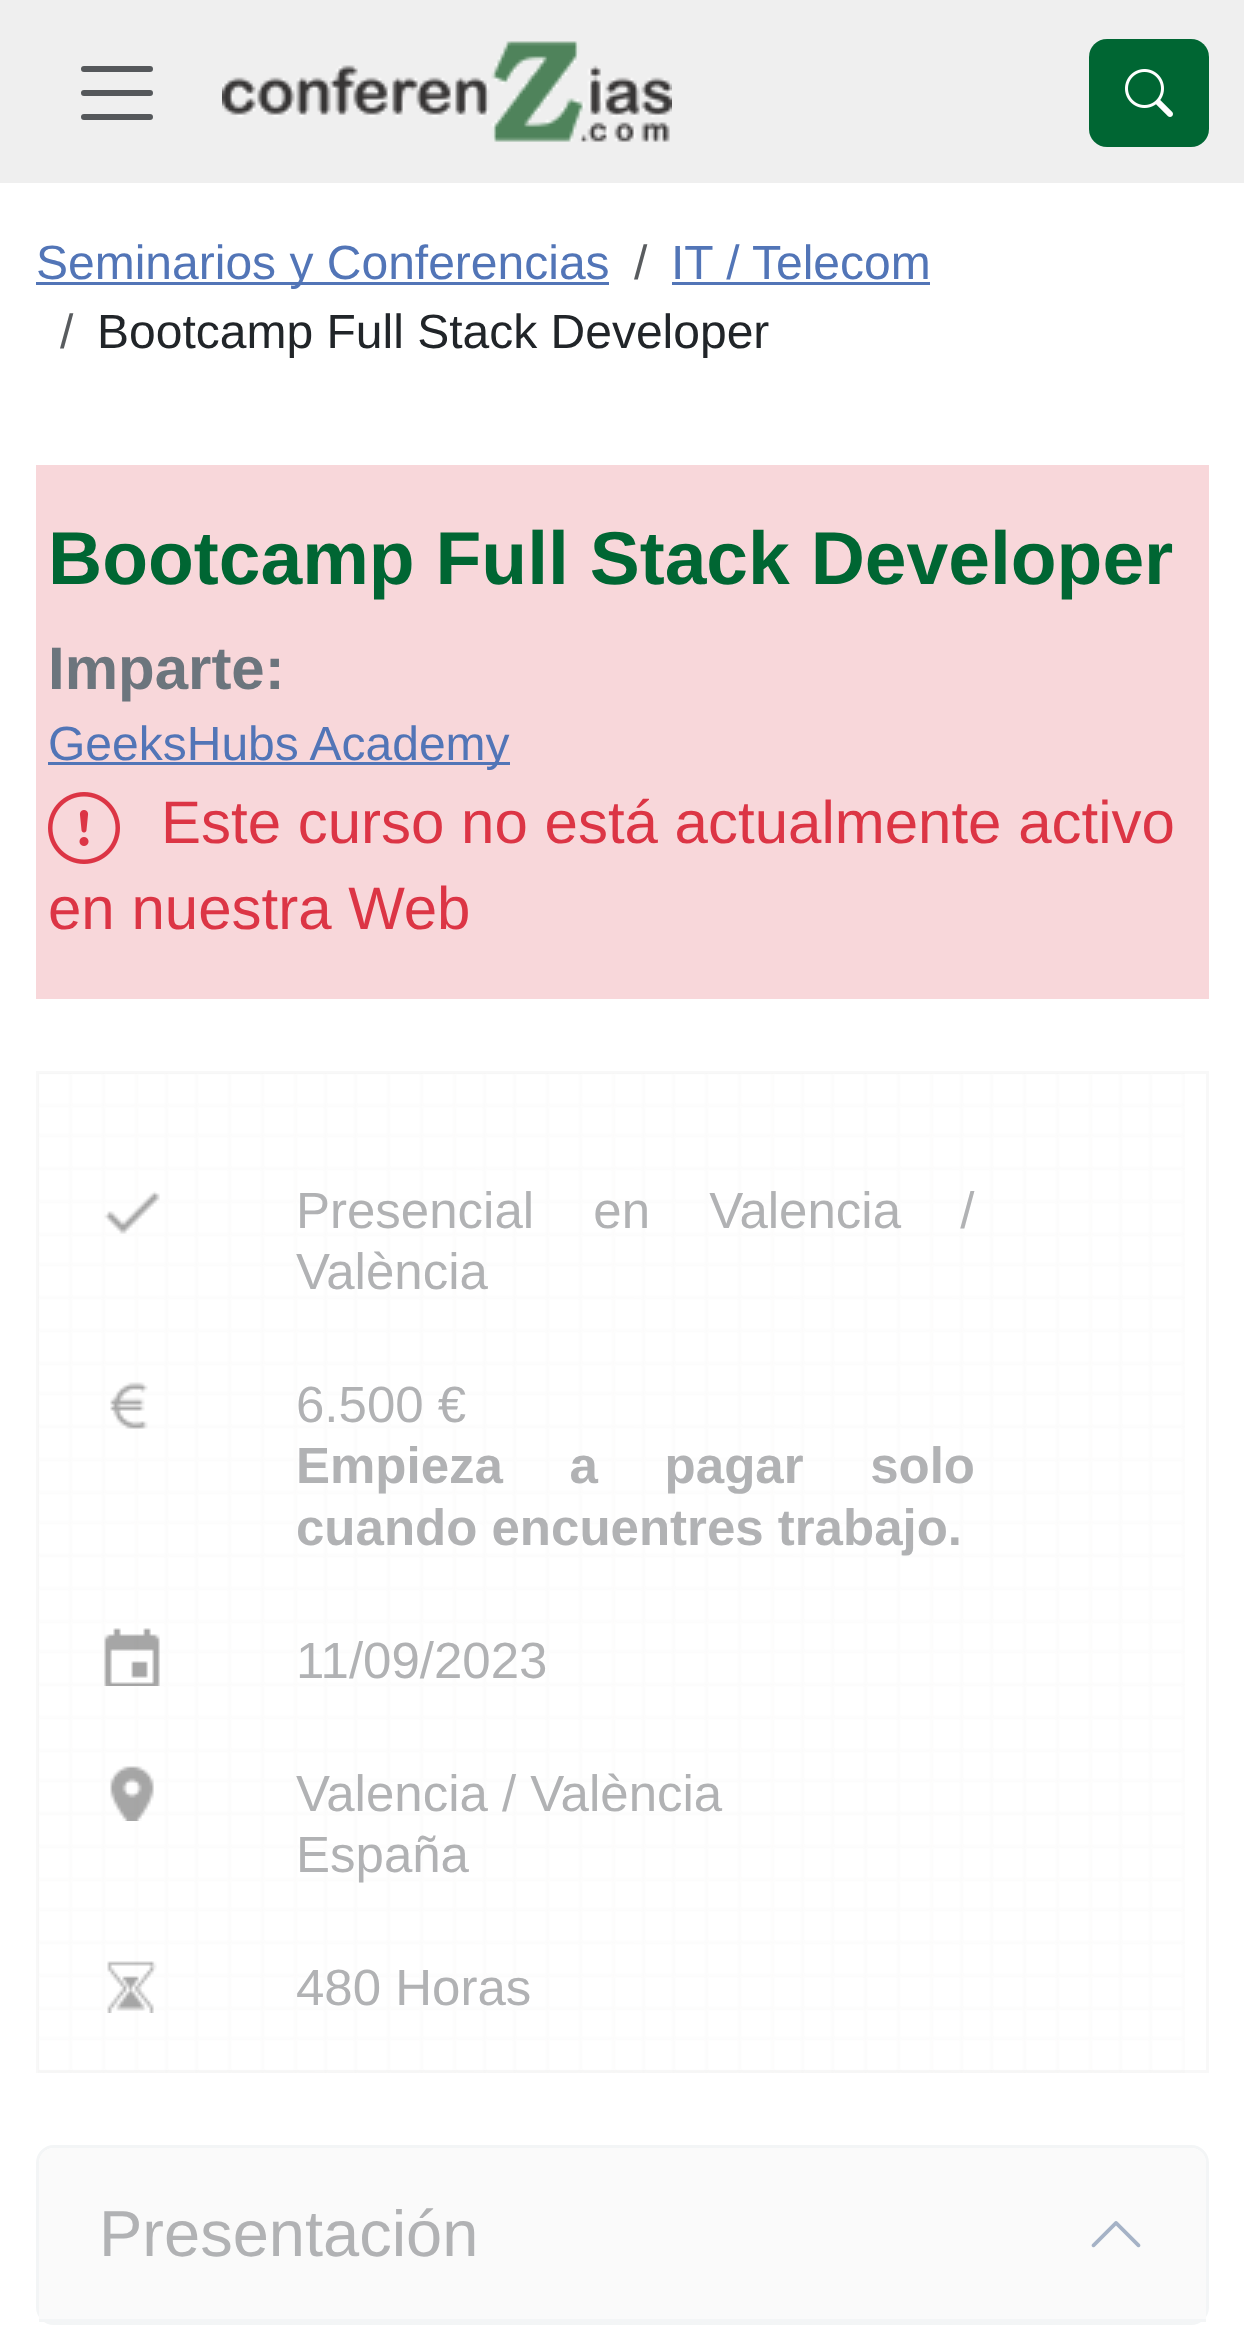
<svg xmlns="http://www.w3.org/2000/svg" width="1244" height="2326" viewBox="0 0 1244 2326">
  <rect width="100%" height="100%" fill="#fff"/>
  <path d="M0 0h1244v183H0z" fill="#efefef"/>
  <path d="M84 69H150M84 93H150M84 117H150" fill="none" stroke="#55585b" stroke-width="6" stroke-linecap="round"/>
  <image x="222" y="41" width="450" height="101" href="img/1.png"/>
  <rect x="1089" y="39" width="120" height="108" rx="18" fill="#063"/>
  <image x="1125" y="69" width="48" height="48" href="img/2.png"/>
  <path d="M36 282h573v3H36z" fill="#5275b7"/>
  <path d="M672 282h258v3H672z" fill="#5275b7"/>
  <path d="M36 465h1173v534H36z" fill="#f8d7da"/>
  <path d="M48 762h462v3H48z" fill="#5275b7"/>
  <image x="48" y="792" width="72" height="72" href="img/3.png"/>
  <image x="38" y="1073" width="1147" height="1000" href="img/4.png"/>
  <path d="M37.5 1072.5h1170v999H37.5z" fill="none" stroke="#eaeaea59" stroke-width="3"/>
  <image x="104" y="1191" width="56" height="43" href="img/5.png"/>
  <image x="110" y="1382" width="38" height="47" href="img/6.png"/>
  <image x="104" y="1628" width="56" height="58" href="img/7.png"/>
  <image x="110" y="1766" width="44" height="55" href="img/8.png"/>
  <image x="107" y="1961" width="50" height="52" href="img/9.png"/>
  <rect x="37.5" y="2146.5" width="1170" height="177" rx="16.5" fill="none" stroke="#f3f5f6" stroke-width="3"/>
  <path d="M54 2148H1191C1199.5 2148 1206 2154.5 1206 2163V2322H39V2163C39 2154.5 45.5 2148 54 2148Z" fill="#fafafa"/>
  <path d="M39 2319h1167v3H39z" fill="#f3f5f6"/>
  <image x="1091" y="2221" width="50" height="27" href="img/10.png"/>
  <text x="36" y="279" font-family="Liberation Sans" font-size="48" fill="#5275b7">Seminarios y Conferencias</text>
  <text x="634" y="279" font-family="Liberation Sans" font-size="48" fill="#595c5f">/</text>
  <text x="671" y="279" font-family="Liberation Sans" font-size="48" fill="#5275b7">IT / Telecom</text>
  <text x="60" y="348" font-family="Liberation Sans" font-size="48" fill="#595c5f">/</text>
  <text x="97" y="348" font-family="Liberation Sans" font-size="48" fill="#212529">Bootcamp Full Stack Developer</text>
  <text x="48" y="584" font-family="Liberation Sans" font-size="75" font-weight="bold" fill="#063">Bootcamp Full Stack Developer</text>
  <text x="48" y="689" font-family="Liberation Sans" font-size="60" font-weight="bold" fill="#6c757d">Imparte:</text>
  <text x="48" y="760" font-family="Liberation Sans" font-size="48" fill="#5275b7">GeeksHubs Academy</text>
  <g font-family="Liberation Sans" font-size="60" fill="#dc3545">
    <text x="161" y="843">Este curso no está actualmente activo</text>
    <text x="48" y="929">en nuestra Web</text>
  </g>
  <g font-family="Liberation Sans" font-size="51" fill="#b1b2b4">
    <text x="296" y="1228" word-spacing="45">Presencial en Valencia /</text>
    <text x="296" y="1289">València</text>
    <text x="296" y="1422">6.500 €</text>
  </g>
  <g font-family="Liberation Sans" font-size="51" font-weight="bold" fill="#b1b2b4">
    <text x="296" y="1483" word-spacing="52.5">Empieza a pagar solo</text>
    <text x="296" y="1545">cuando encuentres trabajo.</text>
  </g>
  <g font-family="Liberation Sans" font-size="51" fill="#b1b2b4">
    <text x="296" y="1678">11/09/2023</text>
    <text x="296" y="1811">Valencia / València</text>
    <text x="296" y="1872">España</text>
    <text x="296" y="2005">480 Horas</text>
  </g>
  <text x="99" y="2256" font-family="Liberation Sans" font-size="65" fill="#b1b2b4">Presentación</text>
</svg>
